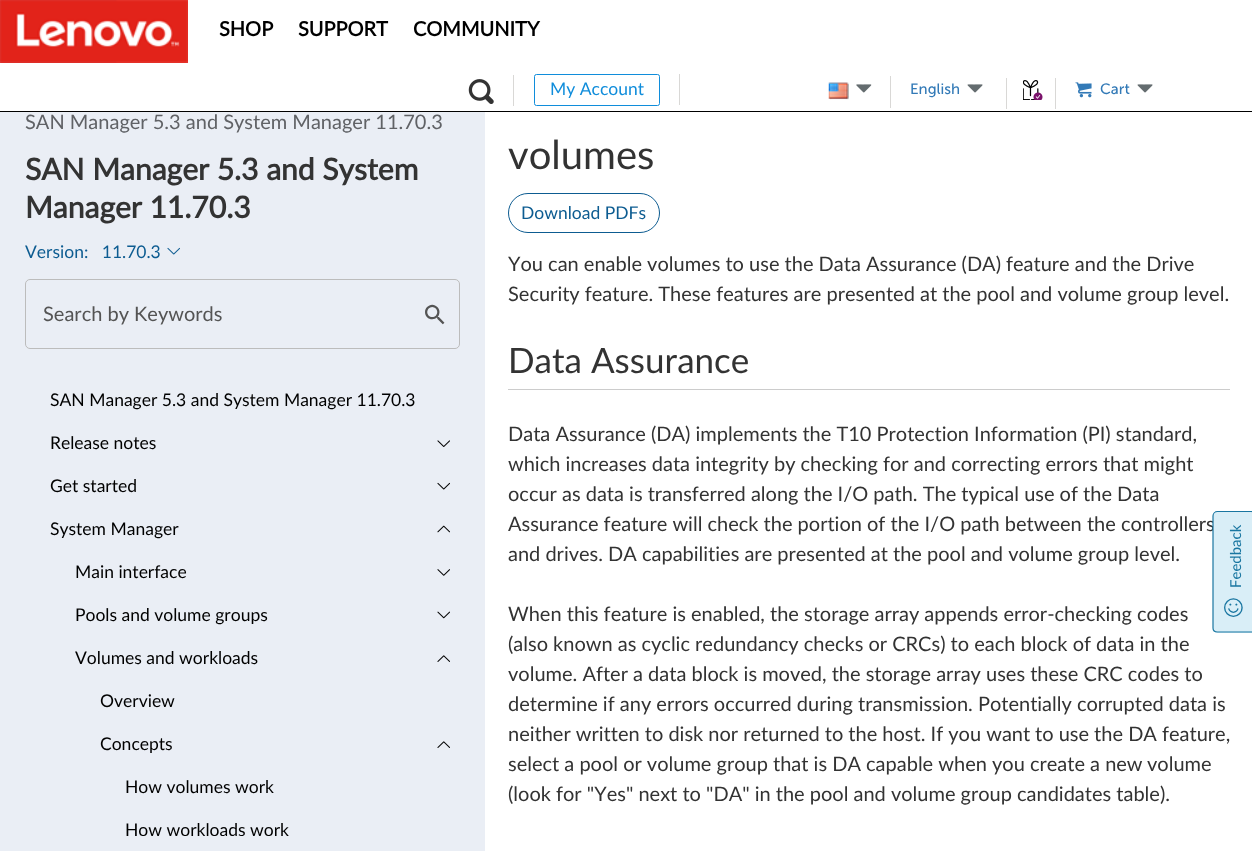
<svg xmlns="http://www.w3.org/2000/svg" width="1252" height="851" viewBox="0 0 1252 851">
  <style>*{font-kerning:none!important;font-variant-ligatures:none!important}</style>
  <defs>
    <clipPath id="clip1"><path d="M25 379h435v457H25z"/></clipPath>
  </defs>
  <rect width="100%" height="100%" fill="#fff"/>
  <path d="M0 111h1252v1H0z" fill="#000"/>
  <image x="0" y="0" width="188" height="63" href="img/1.png"/>
  <path d="M513 75h1v31H513z" fill="#d9d8d6"/>
  <image x="468" y="79" width="26" height="25" href="img/2.png"/>
  <path d="M679 74h1v31H679z" fill="#d9d8d6"/>
  <rect x="534.5" y="74.5" width="125" height="31" rx="2" fill="none" stroke="#108ddb"/>
  <path d="M890 76h1v32H890z" fill="#d9d8d6"/>
  <image x="828" y="82" width="21" height="18" href="img/3.png"/>
  <image x="856" y="84" width="16" height="9" href="img/4.png"/>
  <image x="967" y="84" width="16" height="9" href="img/5.png"/>
  <path d="M1055 78h1v31H1055z" fill="#d9d8d6"/>
  <path d="M1006 78h1v31H1006z" fill="#d9d8d6"/>
  <image x="1023" y="80" width="20" height="20" href="img/6.png"/>
  <image x="1075" y="82" width="17" height="16" href="img/7.png"/>
  <image x="1137" y="84" width="16" height="9" href="img/5.png"/>
  <path d="M0 112h485v739H0z" fill="#eaeef5"/>
  <image x="167" y="247" width="13" height="8" href="img/8.png"/>
  <rect x="25.5" y="279.5" width="434" height="69" rx="4.5" fill="none" stroke="#bcbcbc"/>
  <image x="437" y="440" width="13" height="7" href="img/9.png"/>
  <image x="437" y="482" width="13" height="8" href="img/10.png"/>
  <image x="437" y="525" width="13" height="8" href="img/11.png"/>
  <image x="437" y="569" width="13" height="7" href="img/12.png"/>
  <image x="437" y="611" width="13" height="8" href="img/13.png"/>
  <image x="437" y="655" width="13" height="7" href="img/14.png"/>
  <image x="437" y="741" width="13" height="7" href="img/15.png"/>
  <rect x="508.5" y="193.5" width="151" height="39" rx="19.5" fill="none" stroke="#0d5c91"/>
  <path d="M508 389h722v1H508z" fill="#ccc"/>
  <g font-family="Lato" font-size="20" font-weight="bold" fill="#000">
    <text x="219" y="36">SHOP</text>
    <text x="298" y="36">SUPPORT</text>
    <text x="413" y="36">COMMUNITY</text>
  </g>
  <text x="550" y="95" font-family="Lato" font-size="17.5" fill="#108ddb">My Account</text>
  <g font-family="Museo Sans" font-size="15" fill="#337ab7">
    <text x="910" y="94">English</text>
    <text x="1100" y="94">Cart</text>
  </g>
  <text x="25" y="129" font-family="Lato" font-size="20" fill="#606266">SAN Manager 5.3 and System Manager 11.70.3</text>
  <g font-family="Lato" font-size="30" font-weight="bold" fill="#333">
    <text x="25" y="180">SAN Manager 5.3 and System</text>
    <text x="25" y="218">Manager 11.70.3</text>
  </g>
  <text x="25" y="258" font-family="Lato" font-size="17.5" fill="#0d5c91" xml:space="preserve">Version:   11.70.3</text>
  <text x="43" y="321" font-family="Lato" font-size="20" fill="#545454">Search by Keywords</text>
  <text x="425" y="323" font-family="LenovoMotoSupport" font-size="20" fill="#545454">󡂗</text>
  <g font-family="Lato" font-size="17.5" fill="#000">
    <text x="50" y="406">SAN Manager 5.3 and System Manager 11.70.3</text>
    <text x="50" y="449">Release notes</text>
    <text x="50" y="492">Get started</text>
    <text x="50" y="535">System Manager</text>
    <text x="75" y="578">Main interface</text>
    <text x="75" y="621">Pools and volume groups</text>
    <text x="75" y="664">Volumes and workloads</text>
    <text x="100" y="707">Overview</text>
    <text x="100" y="750">Concepts</text>
    <text x="125" y="793">How volumes work</text>
  </g>
  <g clip-path="url(#clip1)">
    <text x="125" y="836" font-family="Lato" font-size="17.5" fill="#000">How workloads work</text>
  </g>
  <text x="508" y="169" font-family="Lato" font-size="40" fill="#333">volumes</text>
  <text x="521" y="219" font-family="Lato" font-size="17.5" fill="#0d5c91">Download PDFs</text>
  <g font-family="Lato" font-size="20" fill="#333">
    <text x="508" y="271">You can enable volumes to use the Data Assurance (DA)</text>
    <text x="1006" y="271">feature and the Drive</text>
    <text x="508" y="301">Security feature. These features are presented at the pool and volume</text>
    <text x="1127" y="301">group level.</text>
  </g>
  <text x="508" y="373" font-family="Lato" font-size="35" fill="#333">Data Assurance</text>
  <g font-family="Lato" font-size="20" fill="#333">
    <text x="508" y="441">Data Assurance (DA) implements the T10 Protection Information (PI) standard,</text>
    <text x="508" y="471">which increases data integrity by checking for and correcting errors that might</text>
    <text x="508" y="501">occur as data is transferred along the I/O path. The typical use of the Data</text>
    <text x="508" y="531">Assurance feature will check the portion of the I/O path between the controllers</text>
    <text x="508" y="561">and drives. DA capabilities are presented at the pool and volume group level.</text>
    <text x="508" y="621">When this feature is enabled, the storage array appends error-checking codes</text>
    <text x="508" y="651">(also known as cyclic redundancy checks or CRCs) to each block of data in the</text>
    <text x="508" y="681">volume. After a data block is moved, the storage array uses these CRC codes to</text>
    <text x="508" y="711">determine if any errors occurred during transmission. Potentially corrupted data is</text>
    <text x="508" y="741">neither written to disk nor returned to the host. If you want</text>
    <text x="1035" y="741">to use the DA feature,</text>
    <text x="508" y="771">select a pool or volume group that is DA capable when you create a new</text>
    <text x="1147" y="771">volume</text>
    <text x="508" y="801">(look for "Yes" next to "DA" in the pool and volume group</text>
    <text x="1017" y="801">candidates table).</text>
  </g>
  <path d="M1213 628V516C1213 513 1215 511 1218 511H1251C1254 511 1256 513 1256 516V628C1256 631 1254 633 1251 633H1218C1215 633 1213 631 1213 628Z" fill="#d9eef7"/>
  <path d="M1213 628V516C1213 513.5 1215 511.5 1217.5 511.5H1251.5C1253.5 511.5 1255.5 513.5 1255.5 516V628C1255.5 630.5 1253.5 632 1251.5 632H1217.5C1215 632 1213 630.5 1213 628Z" fill="none" stroke="#1976a1" stroke-width="1.2"/>
  <text x="1241" y="588" transform="rotate(-90 1241 588)" font-family="Lato" font-size="15" fill="#1976a1">Feedback</text>
  <text x="1224" y="617" font-family="LenovoMotoSupport" font-size="20" fill="#1976a1">󡉵</text>
</svg>
